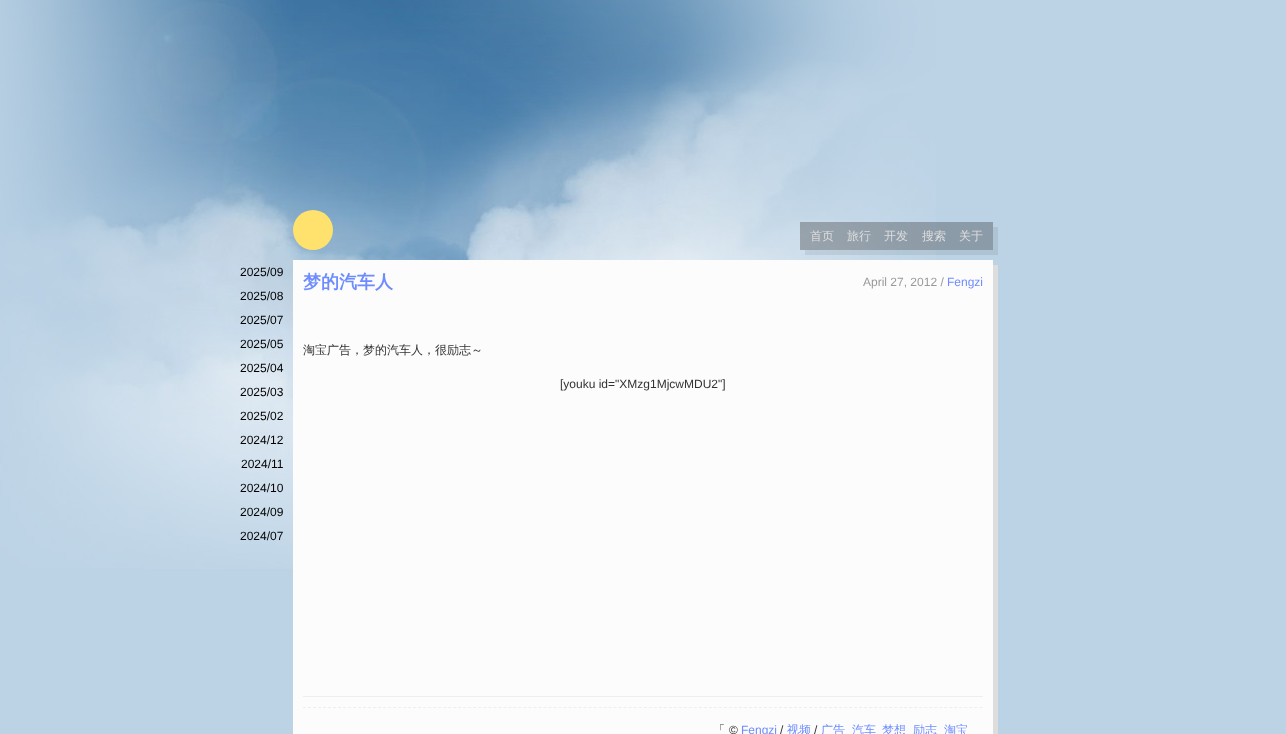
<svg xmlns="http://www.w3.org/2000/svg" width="1286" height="734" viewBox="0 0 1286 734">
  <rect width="100%" height="100%" fill="#bcd3e5"/>
  <image x="0" y="0" width="936" height="569" href="img/1.png"/>
  <circle cx="313" cy="230" r="20" fill="#ffe16e"/>
  <path d="M805 250V255H998V227H993V250Z" fill="#11141814"/>
  <path d="M800 222h193v28H800z" fill="#1d1b1c4d"/>
  <path d="M293 260h700v474H293z" fill="#fcfcfc"/>
  <path d="M298 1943V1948H998V265H993V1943Z" fill="#ddd"/>
  <path d="M303 696h680v1H303z" fill="#eee"/>
  <path d="M303 707.5H983" fill="none" stroke="#eee" stroke-dasharray="3 2.01"/>
  <g font-family="WenQuanYi Zen Hei" font-size="12" font-weight="500" fill="#ddd">
    <text x="810" y="240">首页</text>
    <text x="847" y="240">旅行</text>
    <text x="884" y="240">开发</text>
    <text x="922" y="240">搜索</text>
    <text x="959" y="240">关于</text>
  </g>
  <g font-family="Liberation Sans" font-size="12" fill="#000">
    <text x="240" y="276">2025/09</text>
    <text x="240" y="300">2025/08</text>
    <text x="240" y="324">2025/07</text>
    <text x="240" y="348">2025/05</text>
    <text x="240" y="372">2025/04</text>
    <text x="240" y="396">2025/03</text>
    <text x="240" y="420">2025/02</text>
    <text x="240" y="444">2024/12</text>
    <text x="241" y="468">2024/11</text>
    <text x="240" y="492">2024/10</text>
    <text x="240" y="516">2024/09</text>
    <text x="240" y="540">2024/07</text>
  </g>
  <text x="303" y="288" font-family="WenQuanYi Zen Hei" font-size="18" font-weight="bold" fill="#6e8cff">梦的汽车人</text>
  <text x="863" y="286" font-family="Liberation Sans" font-size="12" fill="#999">April 27, 2012 /</text>
  <text x="947" y="286" font-family="Liberation Sans" font-size="12" fill="#6e8cff">Fengzi</text>
  <text x="303" y="354" font-family="WenQuanYi Zen Hei" font-size="12" font-weight="500" fill="#333">淘宝广告，梦的汽车人，很励志～</text>
  <text x="560" y="388" font-family="Liberation Sans" font-size="12" fill="#333">[youku id="XMzg1MjcwMDU2"]</text>
  <text x="713" y="734" font-family="WenQuanYi Zen Hei" font-size="12" font-weight="500" fill="#333">「</text>
  <text x="729" y="734" font-family="Liberation Sans" font-size="12" fill="#333">©</text>
  <text x="741" y="734" font-family="Liberation Sans" font-size="12" fill="#6e8cff">Fengzi</text>
  <text x="780" y="734" font-family="Liberation Sans" font-size="12" fill="#333">/</text>
  <text x="787" y="734" font-family="WenQuanYi Zen Hei" font-size="12" font-weight="500" fill="#6e8cff">视频</text>
  <text x="814" y="734" font-family="Liberation Sans" font-size="12" fill="#333">/</text>
  <g font-family="WenQuanYi Zen Hei" font-size="12" font-weight="500" fill="#6e8cff">
    <text x="821" y="734">广告</text>
    <text x="852" y="734">汽车</text>
    <text x="882" y="734">梦想</text>
    <text x="913" y="734">励志</text>
    <text x="944" y="734">淘宝</text>
  </g>
</svg>
